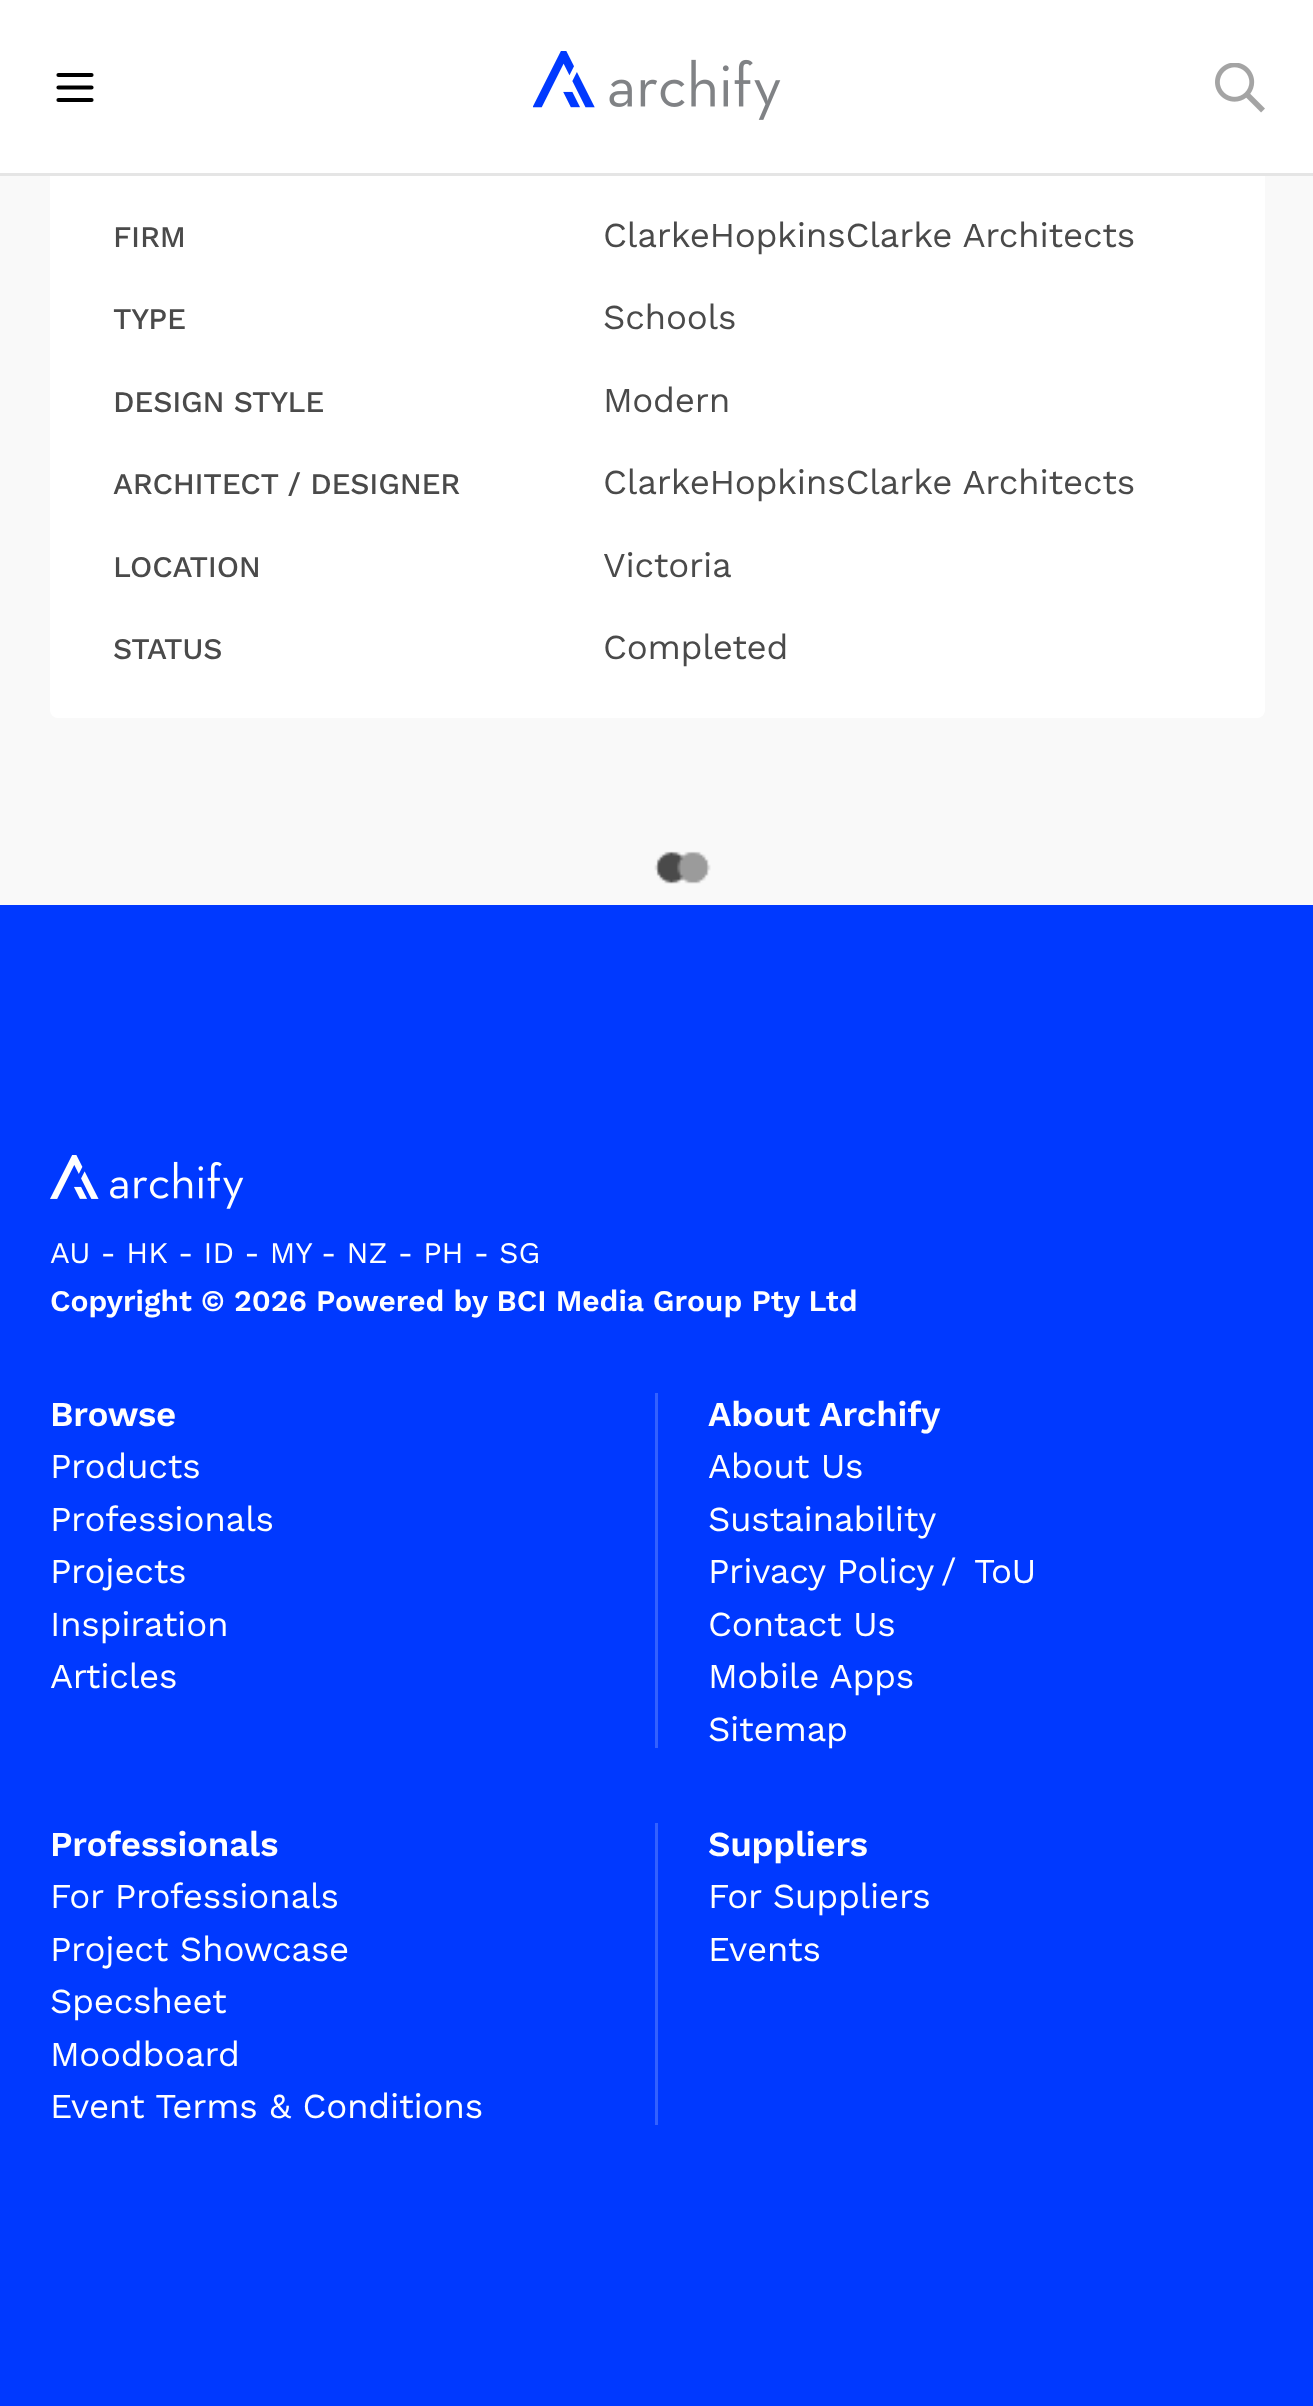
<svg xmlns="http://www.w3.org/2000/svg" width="1313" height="2406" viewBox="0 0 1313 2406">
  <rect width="100%" height="100%" fill="#f9f9f9"/>
  <rect x="50" y="63" width="1215" height="655" rx="8" fill="#fff"/>
  <path d="M0 0h1313v173H0z" fill="#fff"/>
  <path d="M0 173h1313v3H0z" fill="#e5e5e5"/>
  <path d="M58.5 100H91.5M58.5 87.5H91.5M58.5 75H91.5" fill="none" stroke="#000" stroke-width="4.2" stroke-linecap="round"/>
  <image x="533" y="51" width="248" height="69" href="img/1.png"/>
  <image x="1215" y="63" width="50" height="50" href="img/2.png"/>
  <image x="654" y="851" width="57" height="33" href="img/3.png"/>
  <path d="M0 905h1313v1501H0z" fill="#0039ff"/>
  <image x="50" y="1155" width="194" height="54" href="img/4.png"/>
  <path d="M655 1393h3v355H655z" fill="#3361ff"/>
  <path d="M655 1823h3v302H655z" fill="#3361ff"/>
  <text x="113" y="247" font-family="Work Sans" font-size="30" font-weight="500" letter-spacing="-0.25" fill="#4a4a4a">FIRM</text>
  <text x="603" y="247" font-family="Work Sans" font-size="35" letter-spacing="-0.25" fill="#4a4a4a">ClarkeHopkinsClarke Architects</text>
  <text x="113" y="329" font-family="Work Sans" font-size="30" font-weight="500" letter-spacing="-0.25" fill="#4a4a4a">TYPE</text>
  <text x="603" y="329" font-family="Work Sans" font-size="35" letter-spacing="-0.25" fill="#4a4a4a">Schools</text>
  <text x="113" y="412" font-family="Work Sans" font-size="30" font-weight="500" letter-spacing="-0.25" fill="#4a4a4a">DESIGN STYLE</text>
  <text x="603" y="412" font-family="Work Sans" font-size="35" letter-spacing="-0.25" fill="#4a4a4a">Modern</text>
  <text x="113" y="494" font-family="Work Sans" font-size="30" font-weight="500" letter-spacing="-0.25" fill="#4a4a4a">ARCHITECT / DESIGNER</text>
  <text x="603" y="494" font-family="Work Sans" font-size="35" letter-spacing="-0.25" fill="#4a4a4a">ClarkeHopkinsClarke Architects</text>
  <text x="113" y="577" font-family="Work Sans" font-size="30" font-weight="500" letter-spacing="-0.25" fill="#4a4a4a">LOCATION</text>
  <text x="603" y="577" font-family="Work Sans" font-size="35" letter-spacing="-0.25" fill="#4a4a4a">Victoria</text>
  <text x="113" y="659" font-family="Work Sans" font-size="30" font-weight="500" letter-spacing="-0.25" fill="#4a4a4a">STATUS</text>
  <text x="603" y="659" font-family="Work Sans" font-size="35" letter-spacing="-0.25" fill="#4a4a4a">Completed</text>
  <g font-family="Work Sans" font-size="30" fill="#fff">
    <text x="50" y="1263">AU - HK</text>
    <text x="178" y="1263">- ID - MY</text>
    <text x="321" y="1263">- NZ - PH - SG</text>
  </g>
  <text x="50" y="1311" font-family="Work Sans" font-size="30" font-weight="600" fill="#fff">Copyright © 2026 Powered by BCI Media Group Pty Ltd</text>
  <text x="50" y="1426" font-family="Work Sans" font-size="35" font-weight="600" letter-spacing="-0.25" fill="#fff">Browse</text>
  <g font-family="Work Sans" font-size="35" letter-spacing="-0.25" fill="#fff">
    <text x="50" y="1478">Products</text>
    <text x="50" y="1531">Professionals</text>
    <text x="50" y="1583">Projects</text>
    <text x="50" y="1636">Inspiration</text>
    <text x="50" y="1688">Articles</text>
  </g>
  <text x="708" y="1426" font-family="Work Sans" font-size="35" font-weight="600" letter-spacing="-0.25" fill="#fff">About Archify</text>
  <g font-family="Work Sans" font-size="35" letter-spacing="-0.25" fill="#fff">
    <text x="708" y="1478">About Us</text>
    <text x="708" y="1531">Sustainability</text>
    <text x="708" y="1583">Privacy Policy</text>
    <text x="941" y="1583">/</text>
    <text x="974" y="1583">ToU</text>
    <text x="708" y="1636">Contact Us</text>
    <text x="708" y="1688">Mobile Apps</text>
    <text x="708" y="1741">Sitemap</text>
  </g>
  <text x="50" y="1856" font-family="Work Sans" font-size="35" font-weight="600" letter-spacing="-0.25" fill="#fff">Professionals</text>
  <g font-family="Work Sans" font-size="35" letter-spacing="-0.25" fill="#fff">
    <text x="50" y="1908">For Professionals</text>
    <text x="50" y="1961">Project Showcase</text>
    <text x="50" y="2013">Specsheet</text>
    <text x="50" y="2066">Moodboard</text>
    <text x="50" y="2118">Event Terms &amp; Conditions</text>
  </g>
  <text x="708" y="1856" font-family="Work Sans" font-size="35" font-weight="600" letter-spacing="-0.25" fill="#fff">Suppliers</text>
  <g font-family="Work Sans" font-size="35" letter-spacing="-0.25" fill="#fff">
    <text x="708" y="1908">For Suppliers</text>
    <text x="708" y="1961">Events</text>
  </g>
</svg>
